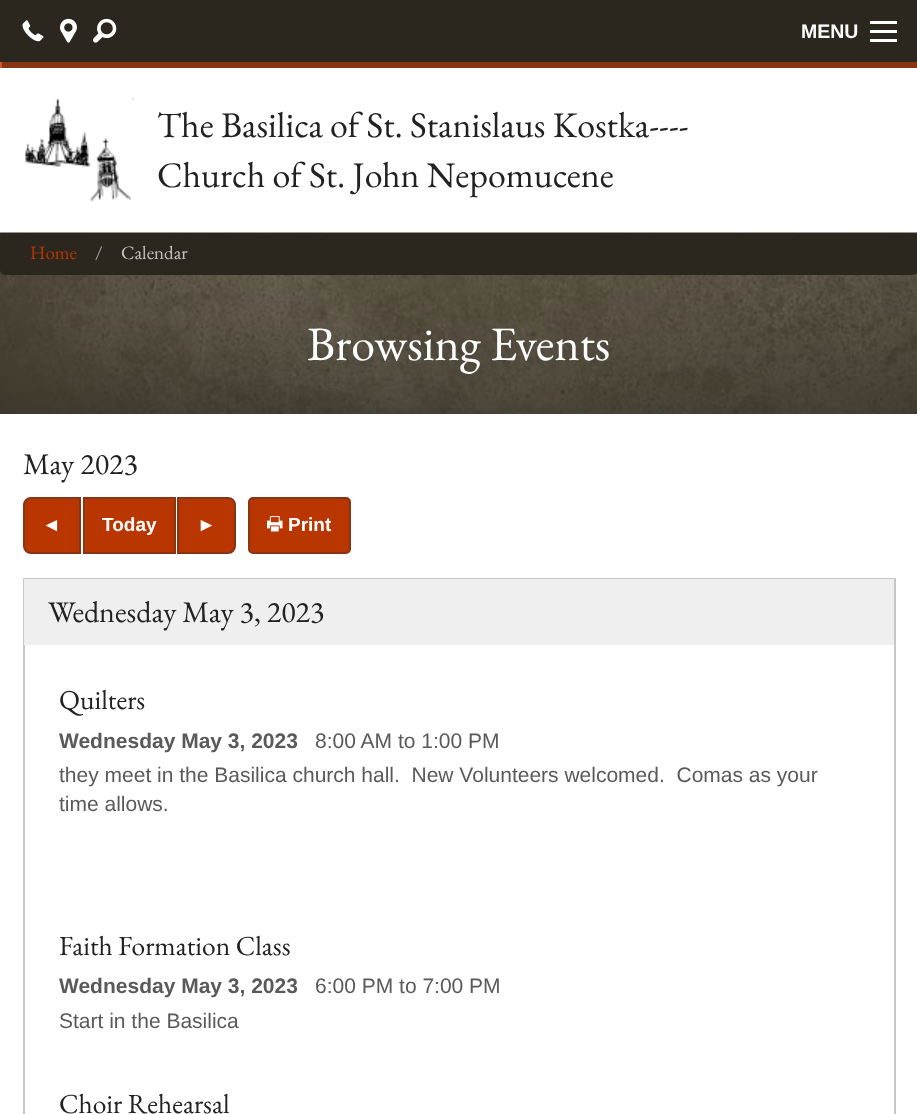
<svg xmlns="http://www.w3.org/2000/svg" width="917" height="1114" viewBox="0 0 917 1114">
  <rect width="100%" height="100%" fill="#fff"/>
  <path d="M0 0h917v62H0z" fill="#2c271e"/>
  <image x="22" y="20" width="22" height="22" href="img/1.png"/>
  <image x="60" y="18" width="17" height="25" href="img/2.png"/>
  <image x="93" y="18" width="24" height="25" href="img/3.png"/>
  <path d="M2 62h915v6H2z" fill="#873514"/>
  <path d="M0 62h2v6H0z" fill="#cc5829"/>
  <path d="M870 39h27v3H870z" fill="#fff"/>
  <path d="M870 30h27v3H870z" fill="#fff"/>
  <path d="M870 21h27v3H870z" fill="#fff"/>
  <image x="25" y="97" width="109" height="105" href="img/4.png"/>
  <image x="0" y="232" width="917" height="182" href="img/5.png"/>
  <rect y="233" width="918" height="42" rx="5" fill="#2c271e"/>
  <path d="M31 498H80V553H31C27 553 24 550 24 546V505C24 501 27 498 31 498Z" fill="#b93600" stroke="#873514" stroke-width="2"/>
  <path d="M84 498h91v55H84z" fill="#b93600" stroke="#873514" stroke-width="2"/>
  <path d="M178 498H228C232 498 235 501 235 505V546C235 550 232 553 228 553H178Z" fill="#b93600" stroke="#873514" stroke-width="2"/>
  <rect x="249" y="498" width="101" height="55" rx="4" fill="#b93600" stroke="#873514" stroke-width="2"/>
  <image x="267" y="516" width="16" height="16" href="img/6.png"/>
  <path d="M24 579h871v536H24z" fill="none" stroke="#c7c7c7" stroke-width="2"/>
  <path d="M24 579h870v66H24z" fill="#efefef"/>
  <text x="801" y="38" font-family="Liberation Sans" font-size="19.5" font-weight="bold" fill="#fff">MENU</text>
  <g font-family="EB Garamond" font-size="36" fill="#222">
    <text x="157" y="137">The Basilica of St. Stanislaus Kostka----</text>
    <text x="157" y="187">Church of St. John Nepomucene</text>
  </g>
  <text x="30" y="259" font-family="EB Garamond" font-size="19" fill="#b93600">Home</text>
  <text x="95" y="259" font-family="EB Garamond" font-size="19" fill="#aaa">/</text>
  <text x="121" y="259" font-family="EB Garamond" font-size="19" fill="#c5c3bf">Calendar</text>
  <text x="307" y="360" font-family="EB Garamond" font-size="48" fill="#fff">Browsing Events</text>
  <text x="23" y="474" font-family="EB Garamond" font-size="30" fill="#222">May 2023</text>
  <g font-family="Liberation Sans" font-size="19" font-weight="bold" fill="#fff">
    <text x="42" y="531">◄</text>
    <text x="102" y="531">Today</text>
    <text x="197" y="531">►</text>
    <text x="288" y="531">Print</text>
  </g>
  <text x="48" y="622" font-family="EB Garamond" font-size="30" fill="#222">Wednesday May 3, 2023</text>
  <text x="59" y="709" font-family="EB Garamond" font-size="27.5" fill="#222">Quilters</text>
  <text x="59" y="748" font-family="Liberation Sans" font-size="21" font-weight="bold" fill="#5a5a5a">Wednesday May 3, 2023</text>
  <g font-family="Liberation Sans" font-size="21" fill="#5a5a5a">
    <text x="315" y="748">8:00 AM to 1:00 PM</text>
    <text x="59" y="782" xml:space="preserve">they meet in the Basilica church hall.  New Volunteers welcomed.  Comas as your</text>
    <text x="59" y="811">time allows.</text>
  </g>
  <text x="59" y="955" font-family="EB Garamond" font-size="27.5" fill="#222">Faith Formation Class</text>
  <text x="59" y="993" font-family="Liberation Sans" font-size="21" font-weight="bold" fill="#5a5a5a">Wednesday May 3, 2023</text>
  <g font-family="Liberation Sans" font-size="21" fill="#5a5a5a">
    <text x="315" y="993">6:00 PM to 7:00 PM</text>
    <text x="59" y="1028">Start in the Basilica</text>
  </g>
  <text x="59" y="1113" font-family="EB Garamond" font-size="27.5" fill="#222">Choir Rehearsal</text>
</svg>
